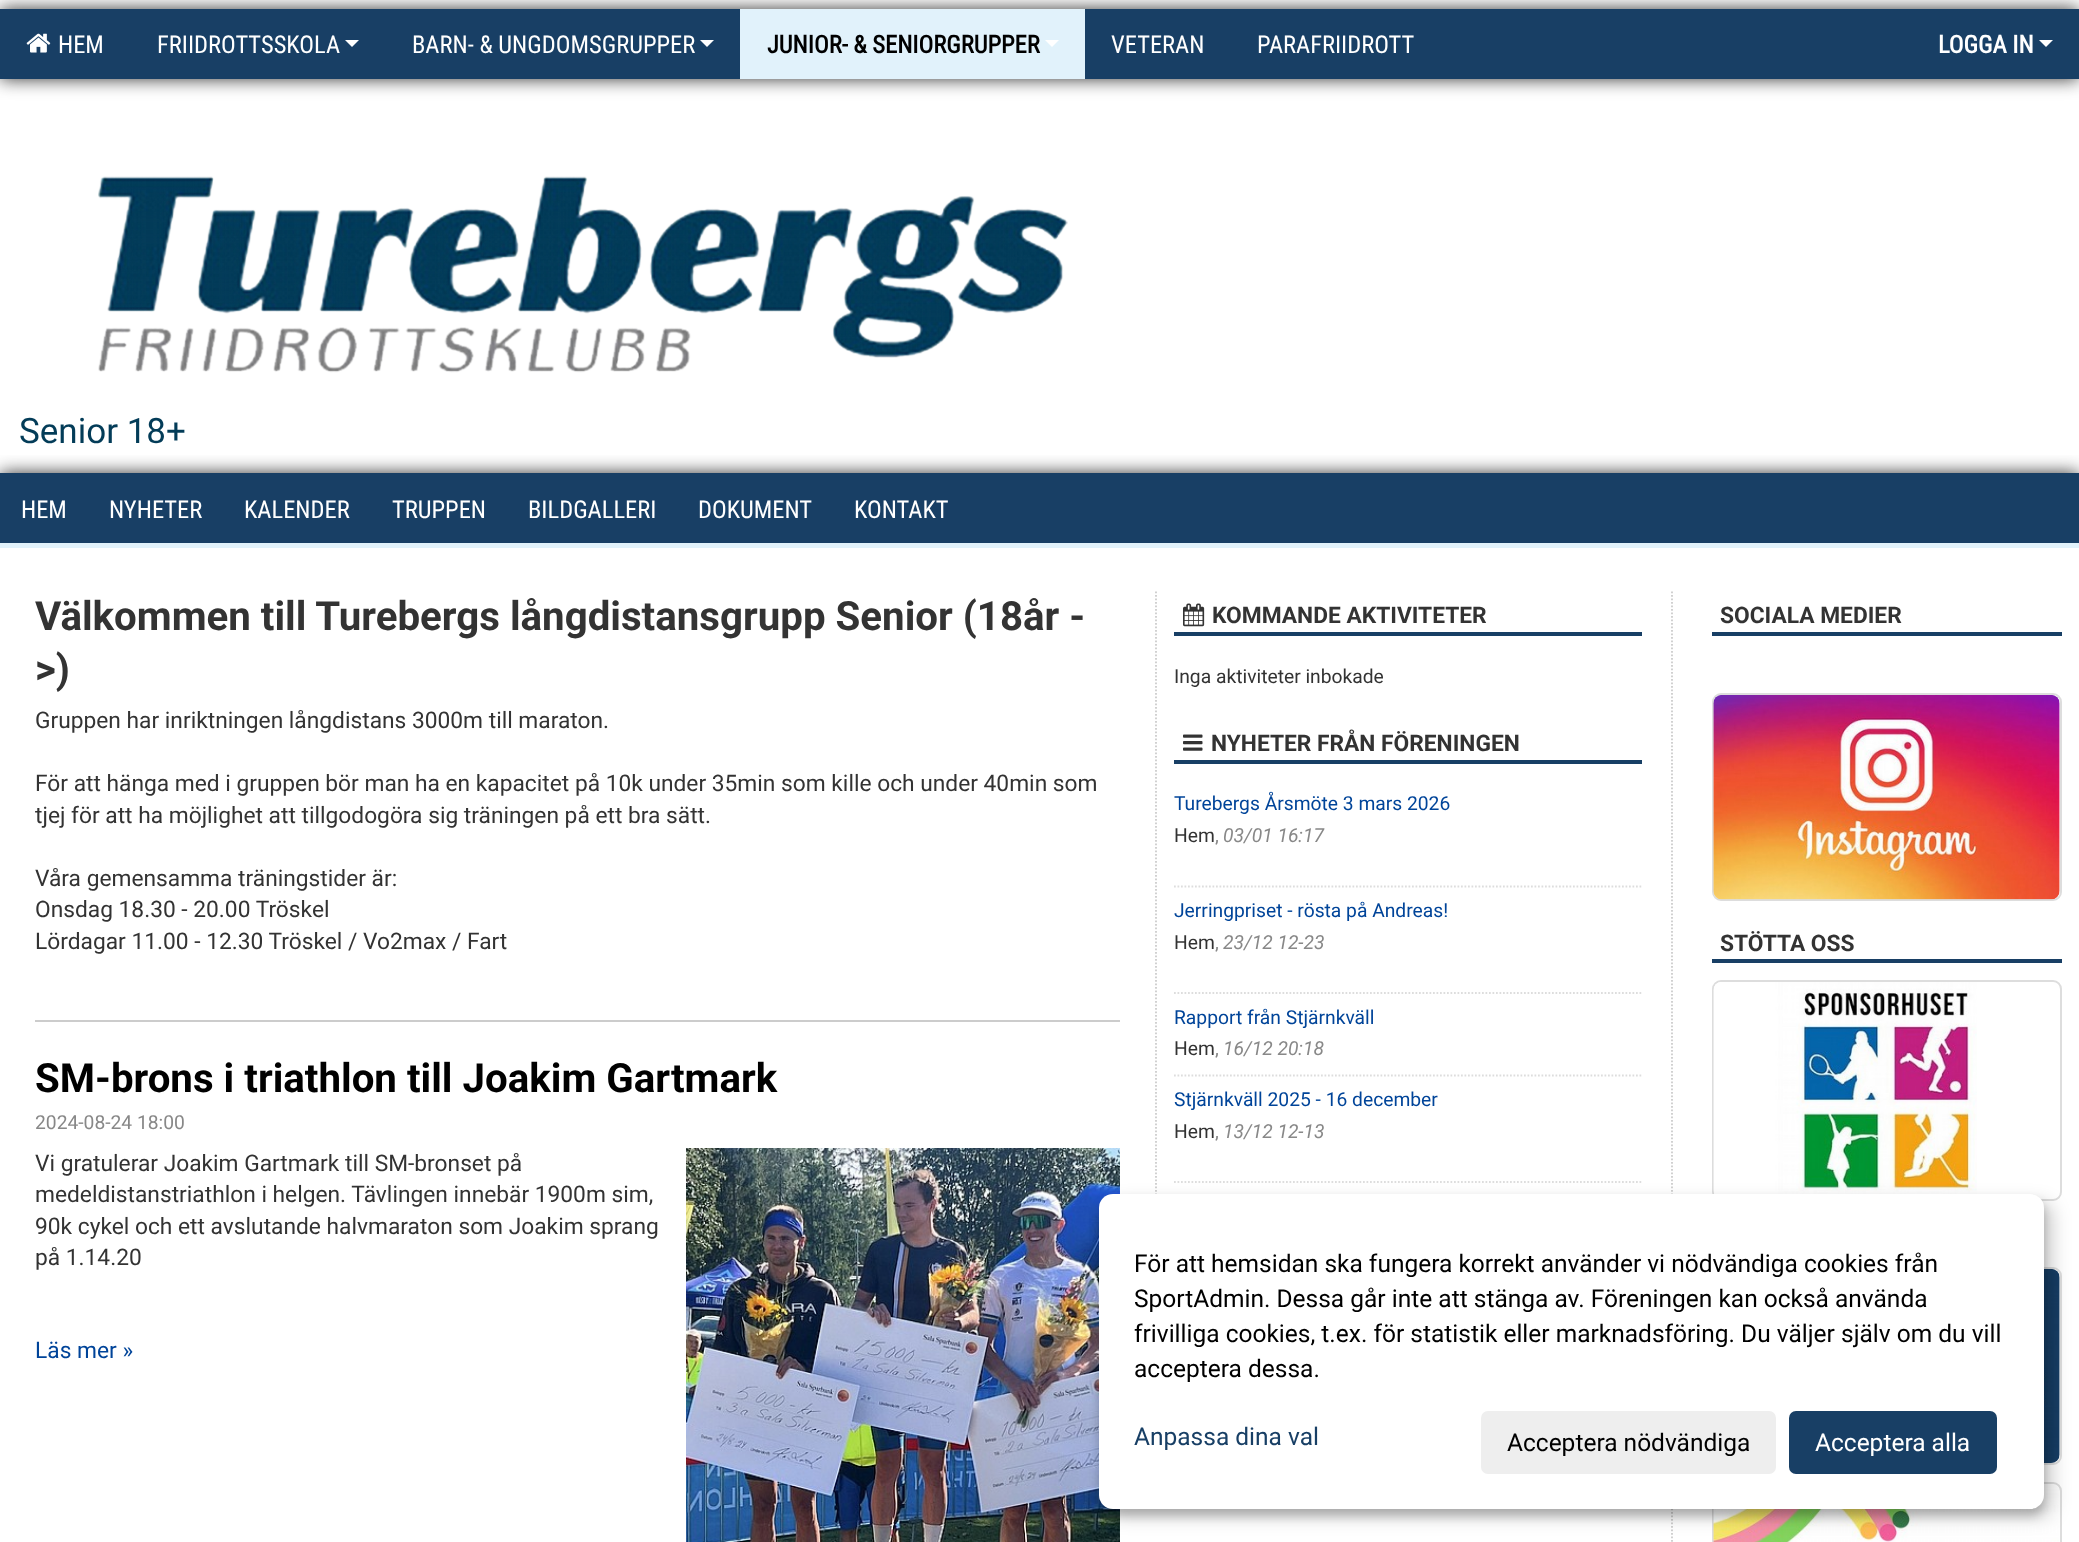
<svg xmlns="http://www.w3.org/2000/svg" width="2079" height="1542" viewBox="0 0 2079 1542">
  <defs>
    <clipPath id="clip1"><path d="M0 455h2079v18H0z"/></clipPath>
  </defs>
  <rect width="100%" height="100%" fill="#fff"/>
  <path d="M0 9h2079v70H0z" fill="#333" filter="blur(9px)"/>
  <path d="M0 9h2079v70H0z" fill="#183f65"/>
  <image x="26" y="33" width="25" height="20" href="img/1.png"/>
  <path d="M345 40H359L352 47Z" fill="#fff"/>
  <path d="M700 40H714L707 47Z" fill="#fff"/>
  <path d="M740 9h345v70H740z" fill="#e1f2fb"/>
  <path d="M1045 40H1059L1052 47Z" fill="#fff"/>
  <path d="M2039 40H2053L2046 47Z" fill="#fff"/>
  <image x="98" y="176" width="970" height="197" href="img/2.png"/>
  <g clip-path="url(#clip1)">
    <path d="M0 473h2079v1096H0z" fill="#333" filter="blur(9px)"/>
  </g>
  <path d="M0 473h2079v70H0z" fill="#183f65"/>
  <path d="M0 543h2079v5H0z" fill="#e1f2fb"/>
  <path d="M35 1020h1085v2H35z" fill="#ccc"/>
  <image x="686" y="1148" width="434" height="394" href="img/3.png"/>
  <path d="M1156 591.5V1466.5" fill="none" stroke="#ccc" stroke-width="1.8" stroke-dasharray="1.75 1.75"/>
  <path d="M1174 632h468v4H1174z" fill="#183f65"/>
  <image x="1183" y="603" width="22" height="24" href="img/4.png"/>
  <path d="M1174 760h468v4H1174z" fill="#183f65"/>
  <image x="1183" y="734" width="20" height="17" href="img/5.png"/>
  <path d="M1174 886.5H1641.5" fill="none" stroke="#ddd" stroke-width="1.8" stroke-dasharray="1.75 1.75"/>
  <path d="M1174 993H1641.5" fill="none" stroke="#ddd" stroke-width="1.8" stroke-dasharray="1.75 1.75"/>
  <path d="M1174 1075.5H1641.5" fill="none" stroke="#ddd" stroke-width="1.8" stroke-dasharray="1.75 1.75"/>
  <path d="M1174 1182H1641.5" fill="none" stroke="#ddd" stroke-width="1.8" stroke-dasharray="1.75 1.75"/>
  <path d="M1672 591.5V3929" fill="none" stroke="#ccc" stroke-width="1.8" stroke-dasharray="1.75 1.75"/>
  <path d="M1712 632h350v4H1712z" fill="#183f65"/>
  <rect x="1713" y="694" width="348" height="206" rx="8" fill="none" stroke="#ddd" stroke-width="2"/>
  <image x="1713" y="695" width="347" height="205" href="img/6.png"/>
  <path d="M1712 959h350v4H1712z" fill="#183f65"/>
  <rect x="1713" y="981" width="348" height="219" rx="8" fill="none" stroke="#ddd" stroke-width="2"/>
  <image x="1713" y="982" width="264" height="212" href="img/7.png"/>
  <rect x="1713" y="1268" width="348" height="196" rx="8" fill="none" stroke="#ddd" stroke-width="2"/>
  <image x="2044" y="1269" width="16" height="194" href="img/8.png"/>
  <rect x="1713" y="1483" width="348" height="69" rx="8" fill="none" stroke="#ddd" stroke-width="2"/>
  <image x="1713" y="1484" width="346" height="58" href="img/9.png"/>
  <rect x="1108" y="1202" width="945" height="315" rx="14" fill="#00000030" filter="blur(9px)"/>
  <rect x="1099" y="1201" width="945" height="315" rx="14" fill="#00000033" filter="blur(5px)"/>
  <rect x="1099" y="1194" width="945" height="315" rx="14" fill="#fff"/>
  <rect x="1481" y="1411" width="295" height="63" rx="7" fill="#eee"/>
  <rect x="1789" y="1411" width="208" height="63" rx="7" fill="#183f65"/>
  <g font-family="Roboto Condensed" font-size="24.5" fill="#fff">
    <text x="58" y="53">HEM</text>
    <text x="157" y="53">FRIIDROTTSSKOLA</text>
    <text x="412" y="53">BARN- &amp; UNGDOMSGRUPPER</text>
  </g>
  <text x="767" y="53" font-family="Roboto Condensed" font-size="24.5" font-weight="bold" fill="#000">JUNIOR- &amp; SENIORGRUPPER</text>
  <g font-family="Roboto Condensed" font-size="24.5" fill="#fff">
    <text x="1111" y="53">VETERAN</text>
    <text x="1257" y="53">PARAFRIIDROTT</text>
  </g>
  <text x="1938" y="53" font-family="Roboto Condensed" font-size="24.5" font-weight="bold" fill="#fff">LOGGA IN</text>
  <text x="19" y="443" font-family="Roboto" font-size="35" fill="#033c58">Senior 18+</text>
  <g font-family="Roboto Condensed" font-size="24.5" fill="#fff">
    <text x="21" y="518">HEM</text>
    <text x="109" y="518">NYHETER</text>
    <text x="244" y="518">KALENDER</text>
    <text x="392" y="518">TRUPPEN</text>
    <text x="528" y="518">BILDGALLERI</text>
    <text x="698" y="518">DOKUMENT</text>
    <text x="854" y="518">KONTAKT</text>
  </g>
  <g font-family="Roboto" font-size="40.25" font-weight="bold" fill="#333">
    <text x="35" y="630">Välkommen till Turebergs långdistansgrupp Senior (18år -</text>
    <text x="35" y="683">&gt;)</text>
  </g>
  <g font-family="Roboto" font-size="22.75" fill="#333">
    <text x="35" y="728">Gruppen har inriktningen långdistans 3000m till maraton.</text>
    <text x="35" y="791">För att hänga med i gruppen bör man ha en kapacitet på 10k under 35min som kille och under 40min som</text>
    <text x="35" y="823">tjej för att ha möjlighet att tillgodogöra sig träningen på ett bra sätt.</text>
    <text x="35" y="886">Våra gemensamma träningstider är:</text>
    <text x="35" y="917">Onsdag 18.30 - 20.00 Tröskel</text>
    <text x="35" y="949">Lördagar 11.00 - 12.30 Tröskel / Vo2max / Fart</text>
  </g>
  <text x="35" y="1092" font-family="Roboto" font-size="40.25" font-weight="bold" fill="#000">SM-brons i triathlon till Joakim Gartmark</text>
  <text x="35" y="1129" font-family="Roboto" font-size="19.25" fill="#888">2024-08-24 18:00</text>
  <g font-family="Roboto" font-size="22.75" fill="#333">
    <text x="35" y="1171">Vi gratulerar Joakim Gartmark till SM-bronset på</text>
    <text x="35" y="1202">medeldistanstriathlon i helgen. Tävlingen innebär 1900m sim,</text>
    <text x="35" y="1234">90k cykel och ett avslutande halvmaraton som Joakim sprang</text>
    <text x="35" y="1265">på 1.14.20</text>
  </g>
  <text x="35" y="1358" font-family="Roboto" font-size="22.75" fill="#049">Läs mer »</text>
  <text x="1212" y="623" font-family="Roboto" font-size="22.75" font-weight="bold" fill="#333">KOMMANDE AKTIVITETER</text>
  <text x="1174" y="683" font-family="Roboto" font-size="19.25" fill="#333">Inga aktiviteter inbokade</text>
  <text x="1211" y="751" font-family="Roboto" font-size="22.75" font-weight="bold" fill="#333">NYHETER FRÅN FÖRENINGEN</text>
  <text x="1174" y="810" font-family="Roboto" font-size="19.25" fill="#049">Turebergs Årsmöte 3 mars 2026</text>
  <text x="1174" y="842" font-family="Roboto" font-size="19.25" fill="#333">Hem</text>
  <text x="1215" y="842" font-family="Roboto" font-size="19.25" fill="#888">,</text>
  <text x="1223" y="842" font-family="Roboto" font-size="19.25" font-style="italic" fill="#888">03/01 16:17</text>
  <text x="1174" y="917" font-family="Roboto" font-size="19.25" fill="#049">Jerringpriset - rösta på Andreas!</text>
  <text x="1174" y="949" font-family="Roboto" font-size="19.25" fill="#333">Hem</text>
  <text x="1215" y="949" font-family="Roboto" font-size="19.25" fill="#888">,</text>
  <text x="1223" y="949" font-family="Roboto" font-size="19.25" font-style="italic" fill="#888">23/12 12-23</text>
  <text x="1174" y="1024" font-family="Roboto" font-size="19.25" fill="#049">Rapport från Stjärnkväll</text>
  <text x="1174" y="1055" font-family="Roboto" font-size="19.25" fill="#333">Hem</text>
  <text x="1215" y="1055" font-family="Roboto" font-size="19.25" fill="#888">,</text>
  <text x="1223" y="1055" font-family="Roboto" font-size="19.25" font-style="italic" fill="#888">16/12 20:18</text>
  <text x="1174" y="1106" font-family="Roboto" font-size="19.25" fill="#049">Stjärnkväll 2025 - 16 december</text>
  <text x="1174" y="1138" font-family="Roboto" font-size="19.25" fill="#333">Hem</text>
  <text x="1215" y="1138" font-family="Roboto" font-size="19.25" fill="#888">,</text>
  <text x="1223" y="1138" font-family="Roboto" font-size="19.25" font-style="italic" fill="#888">13/12 12-13</text>
  <g font-family="Roboto" font-size="22.75" font-weight="bold" fill="#333">
    <text x="1720" y="623">SOCIALA MEDIER</text>
    <text x="1720" y="951">STÖTTA OSS</text>
  </g>
  <g font-family="Roboto" font-size="24.5" fill="#000">
    <text x="1134" y="1272">För att hemsidan ska fungera korrekt använder vi nödvändiga cookies från</text>
    <text x="1134" y="1307">SportAdmin. Dessa går inte att stänga av. Föreningen kan också använda</text>
    <text x="1134" y="1342">frivilliga cookies, t.ex. för statistik eller marknadsföring. Du väljer själv om du vill</text>
    <text x="1134" y="1377">acceptera dessa.</text>
  </g>
  <text x="1134" y="1445" font-family="Roboto" font-size="24.5" fill="#183f65">Anpassa dina val</text>
  <text x="1507" y="1451" font-family="Roboto" font-size="24.5" fill="#000">Acceptera nödvändiga</text>
  <text x="1815" y="1451" font-family="Roboto" font-size="24.5" fill="#fff">Acceptera alla</text>
</svg>
